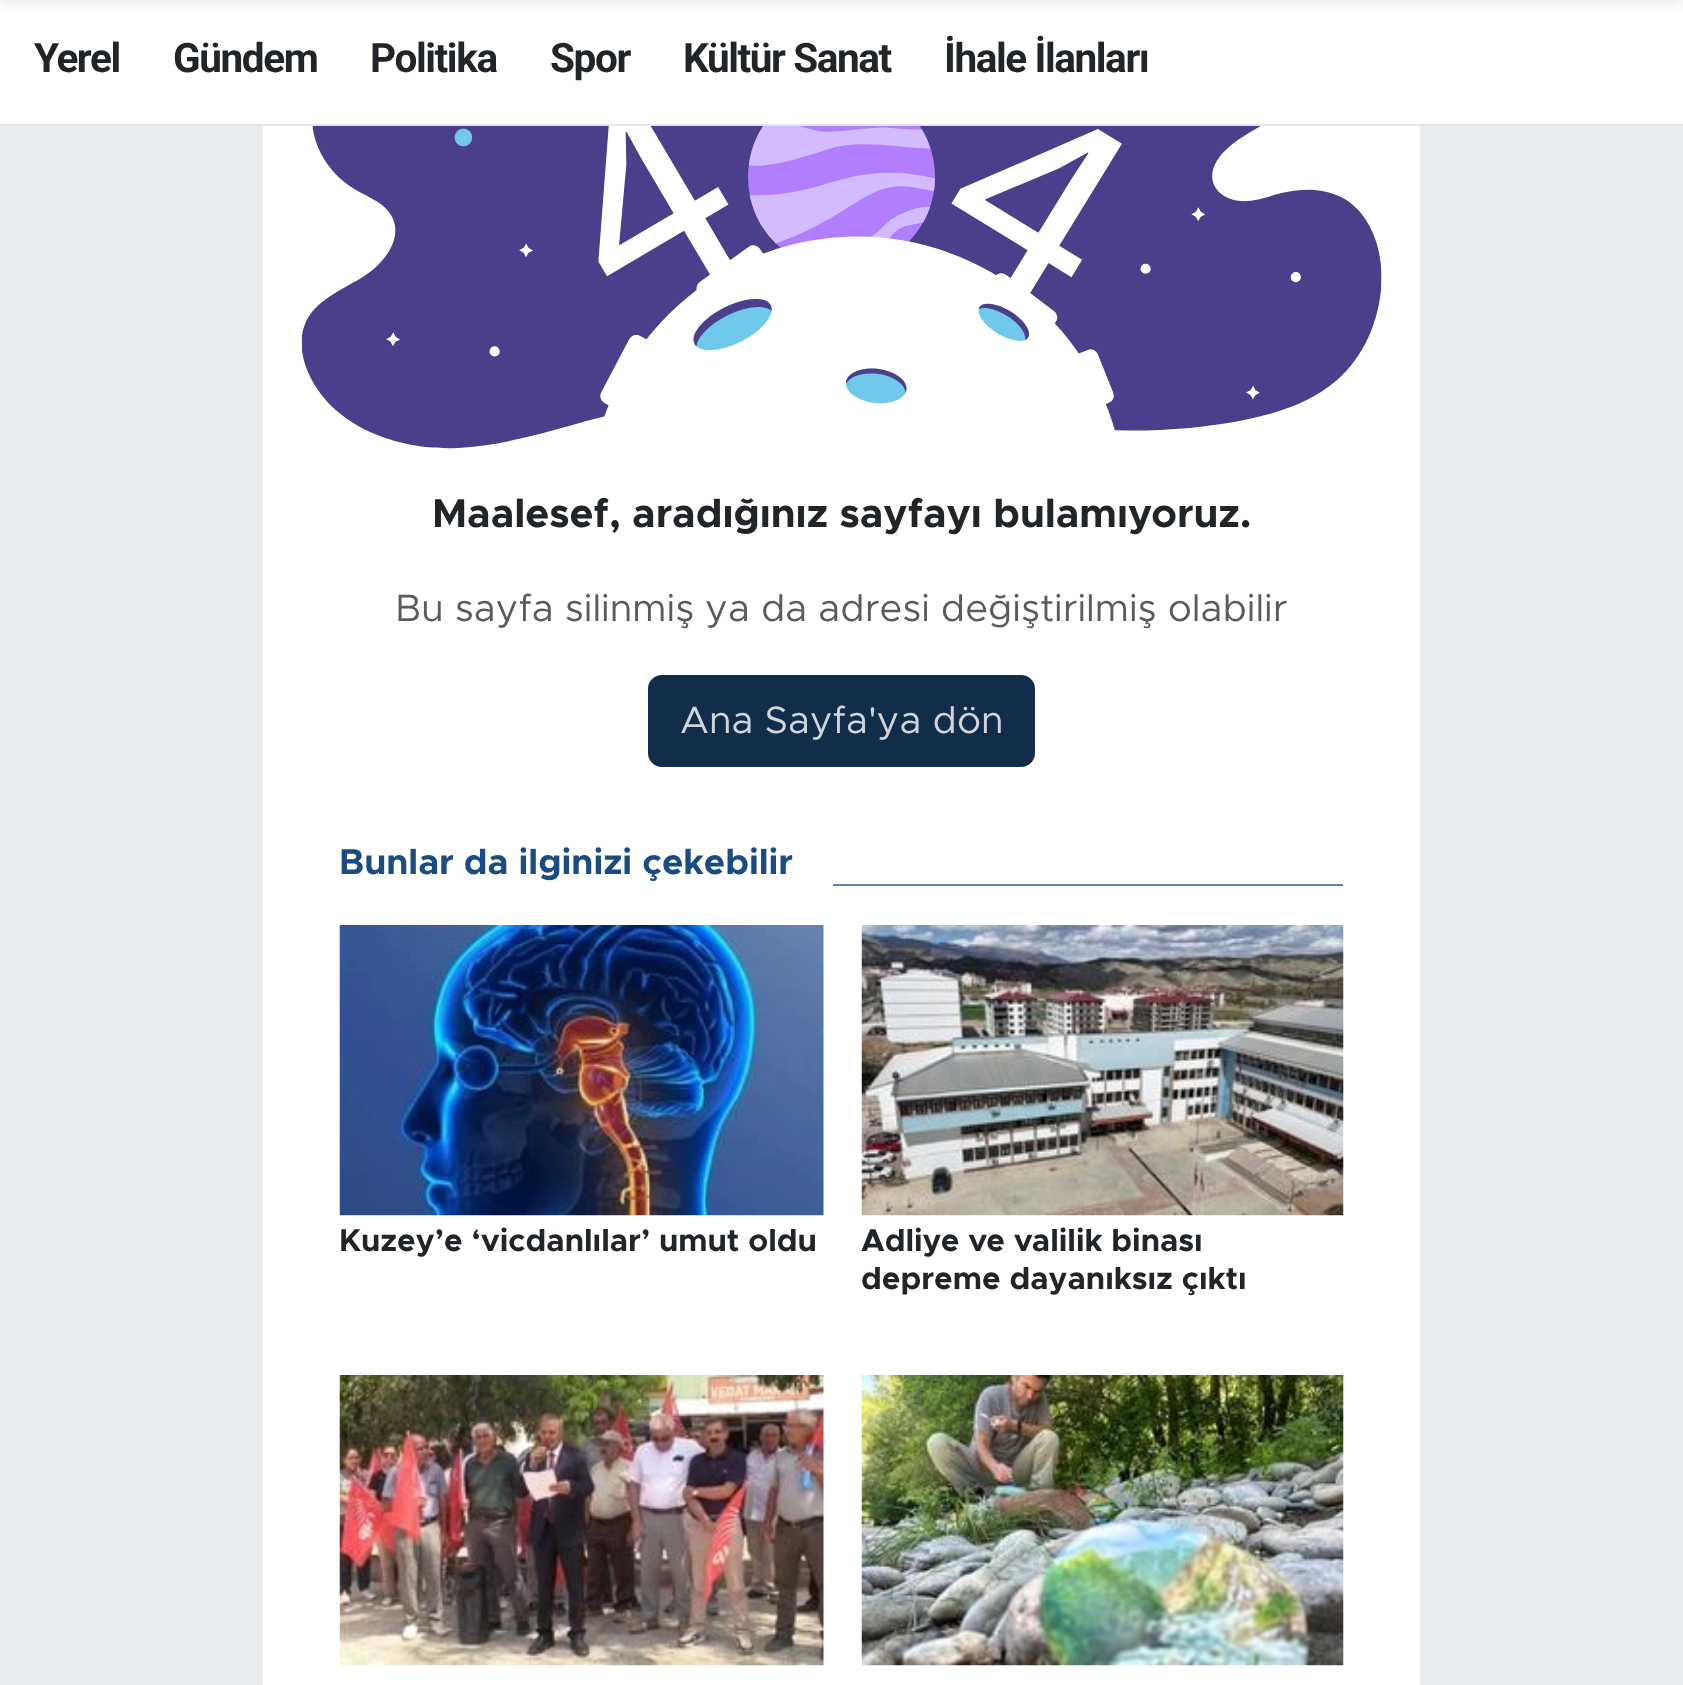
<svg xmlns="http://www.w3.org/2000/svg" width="1683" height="1685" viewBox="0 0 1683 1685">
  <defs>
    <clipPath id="clip1"><path d="M862 1224h481v74H862z"/></clipPath>
  </defs>
  <rect width="100%" height="100%" fill="#e9ecef"/>
  <path d="M0 0h1683v124H0z" fill="#fff"/>
  <path d="M0 -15h1683v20H0z" fill="#00000012" filter="blur(5px)"/>
  <path d="M0 124h1683v2H0z" fill="#e6e6e6"/>
  <path d="M263 126h1157v1559H263z" fill="#fff"/>
  <image x="302" y="126" width="1080" height="323" href="img/1.png"/>
  <rect x="649" y="676" width="385" height="90" rx="13" fill="#122d4a" stroke="#122d4a" stroke-width="2"/>
  <path d="M833 884h510v2H833z" fill="#5e82a8"/>
  <image x="339" y="925" width="485" height="291" href="img/2.png"/>
  <image x="861" y="925" width="483" height="291" href="img/3.png"/>
  <image x="339" y="1375" width="485" height="291" href="img/4.png"/>
  <image x="861" y="1375" width="483" height="291" href="img/5.png"/>
  <g font-family="Roboto" font-size="40.5" font-weight="bold" letter-spacing="-1.4" fill="#212529">
    <text x="34" y="72">Yerel</text>
    <text x="173" y="72">Gündem</text>
    <text x="370" y="72">Politika</text>
    <text x="550" y="72">Spor</text>
    <text x="683" y="72">Kültür Sanat</text>
    <text x="944" y="72">İhale İlanları</text>
  </g>
  <text x="432" y="527" font-family="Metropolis" font-size="40.5" font-weight="bold" fill="#212529">Maalesef, aradığınız sayfayı bulamıyoruz.</text>
  <text x="395" y="621" font-family="Metropolis" font-size="38.25" fill="#595c5f">Bu sayfa silinmiş ya da adresi değiştirilmiş olabilir</text>
  <text x="680" y="733" font-family="Metropolis" font-size="38.25" fill="#d0d5db">Ana Sayfa'ya dön</text>
  <text x="339" y="874" font-family="Metropolis" font-size="36" font-weight="bold" fill="#194c82">Bunlar da ilginizi çekebilir</text>
  <g font-family="Metropolis" font-size="31.5" font-weight="bold" fill="#212529">
    <text x="339" y="1251">Kuzey’e ‘vicdanlılar’ umut oldu</text>
    <text x="861" y="1251">Adliye ve valilik binası</text>
  </g>
  <g clip-path="url(#clip1)">
    <text x="861" y="1289" font-family="Metropolis" font-size="31.5" font-weight="bold" fill="#212529">depreme dayanıksız çıktı</text>
  </g>
</svg>
